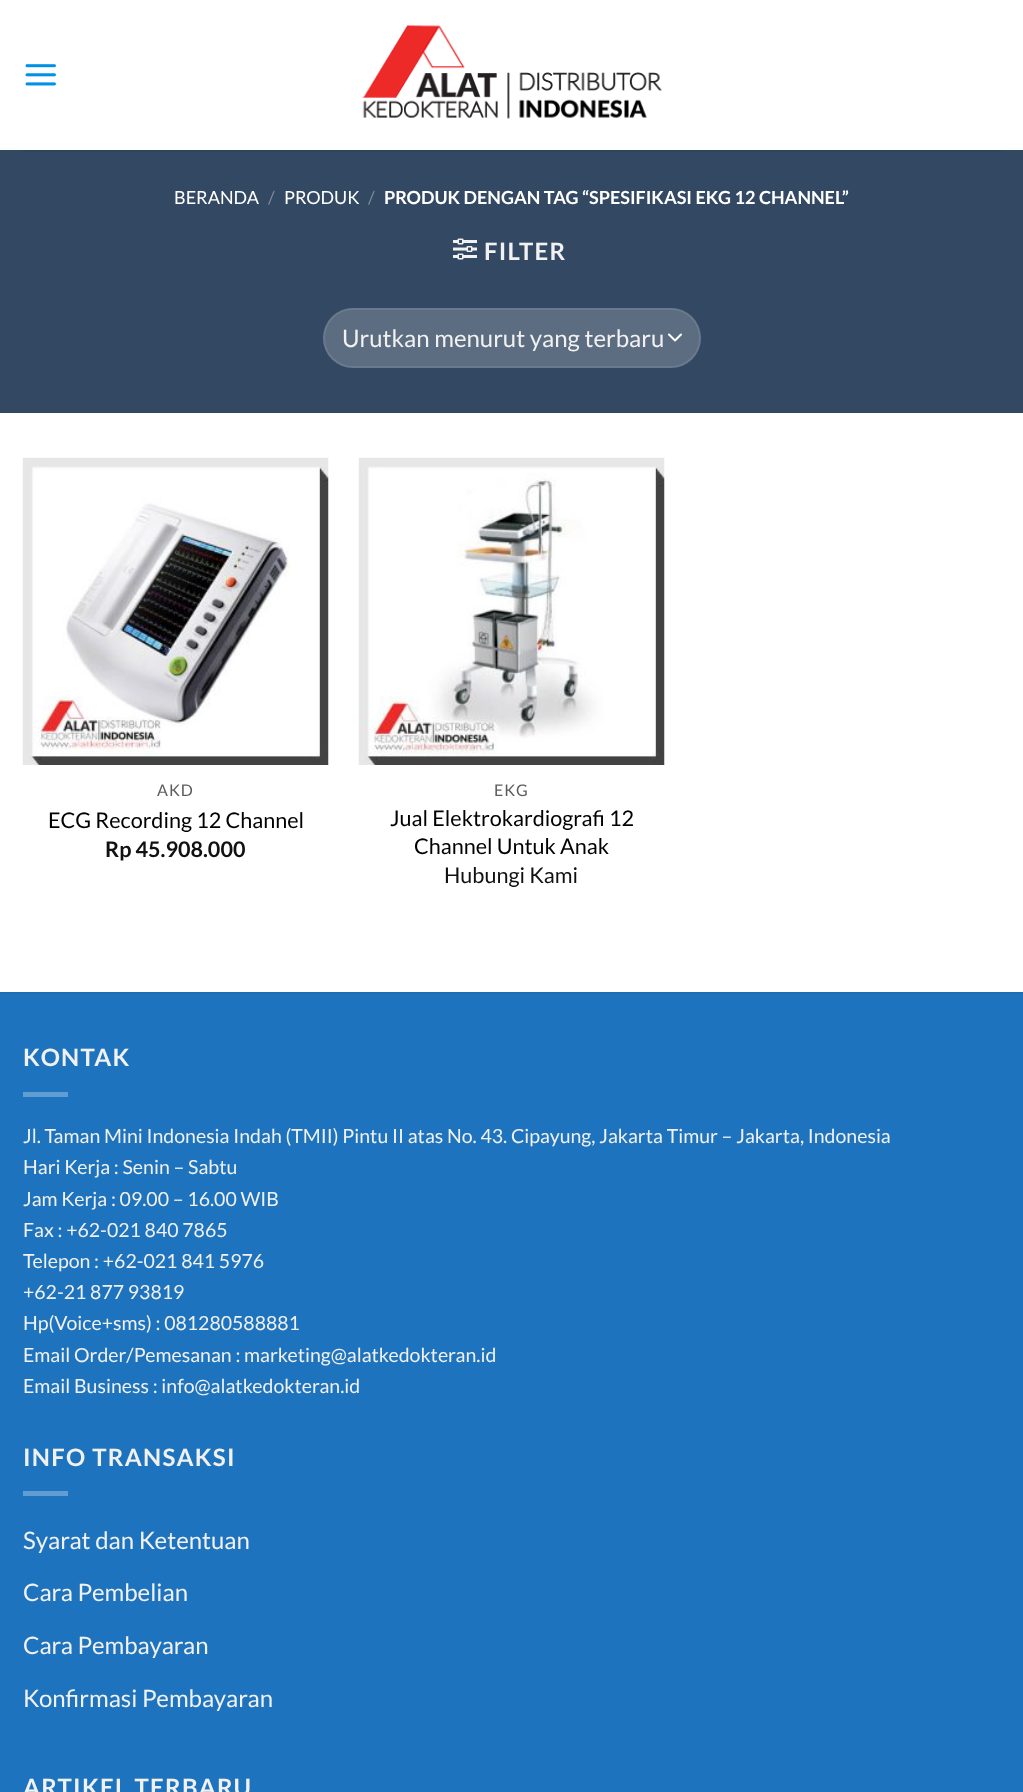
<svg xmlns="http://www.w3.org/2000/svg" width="1023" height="1792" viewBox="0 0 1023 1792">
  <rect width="100%" height="100%" fill="#fff"/>
  <image x="25" y="64" width="31" height="22" href="img/1.png"/>
  <image x="362" y="25" width="300" height="94" href="img/2.png"/>
  <path d="M0 150h1023v263H0z" fill="#334863"/>
  <path d="M23 150h978v2H23z" fill="#30435b"/>
  <image x="453" y="238" width="24" height="22" href="img/3.png"/>
  <rect x="323" y="308" width="378" height="60" rx="30" fill="#5c6d82"/>
  <path d="M669 334.5L675 340.5L681 334.5" fill="none" stroke="#fff" stroke-width="2" stroke-linecap="round" stroke-linejoin="round"/>
  <rect x="324" y="309" width="376" height="58" rx="29" fill="none" stroke="#ffffff17" stroke-width="2"/>
  <image x="22" y="457" width="307" height="308" href="img/4.png"/>
  <image x="358" y="457" width="307" height="308" href="img/5.png"/>
  <path d="M0 994h1023v798H0z" fill="#1e73be"/>
  <path d="M0 992h1023v2H0z" fill="#1d6db5"/>
  <path d="M23 1092h45v5H23z" fill="#629dd2"/>
  <path d="M23 1491h45v5H23z" fill="#629dd2"/>
  <text x="174" y="204" font-family="Lato" font-size="18" fill="#fff">BERANDA</text>
  <text x="268" y="204" font-family="Lato" font-size="18" fill="#7a889a">/</text>
  <text x="284" y="204" font-family="Lato" font-size="18" fill="#fff">PRODUK</text>
  <text x="368" y="204" font-family="Lato" font-size="18" fill="#7a889a">/</text>
  <text x="384" y="204" font-family="Lato" font-size="18" font-weight="bold" fill="#fff">PRODUK DENGAN TAG “SPESIFIKASI EKG 12 CHANNEL”</text>
  <text x="484" y="260" font-family="Lato" font-size="24" font-weight="bold" letter-spacing="1.25" fill="#f1f1f1">FILTER</text>
  <text x="342" y="347" font-family="Lato" font-size="24" fill="#f1f1f1">Urutkan menurut yang terbaru</text>
  <text x="157" y="796" font-family="Lato" font-size="16" letter-spacing="1" fill="#5c5c5c">AKD</text>
  <text x="48" y="828" font-family="Lato" font-size="21.6" fill="#000">ECG Recording 12 Channel</text>
  <text x="105" y="857" font-family="Lato" font-size="21.6" font-weight="bold" fill="#111">Rp 45.908.000</text>
  <text x="494" y="796" font-family="Lato" font-size="16" letter-spacing="1" fill="#5c5c5c">EKG</text>
  <g font-family="Lato" font-size="21.6" fill="#000">
    <text x="390" y="826">Jual Elektrokardiografi 12</text>
    <text x="414" y="854">Channel Untuk Anak</text>
  </g>
  <text x="444" y="883" font-family="Lato" font-size="21.6" fill="#111">Hubungi Kami</text>
  <text x="23" y="1066" font-family="Lato" font-size="24" font-weight="bold" letter-spacing="1.25" fill="#f1f1f1">KONTAK</text>
  <g font-family="Lato" font-size="19.5" fill="#f1f1f1">
    <text x="23" y="1143">Jl. Taman Mini Indonesia Indah (TMII) Pintu II atas No. 43. Cipayung, Jakarta Timur – Jakarta, Indonesia</text>
    <text x="23" y="1174">Hari Kerja : Senin – Sabtu</text>
    <text x="23" y="1206">Jam Kerja : 09.00 – 16.00 WIB</text>
    <text x="23" y="1237">Fax : +62-021 840 7865</text>
    <text x="23" y="1268">Telepon : +62-021 841 5976</text>
    <text x="23" y="1299">+62-21 877 93819</text>
    <text x="23" y="1330">Hp(Voice+sms) : 081280588881</text>
    <text x="23" y="1362">Email Order/Pemesanan : marketing@alatkedokteran.id</text>
    <text x="23" y="1393">Email Business : info@alatkedokteran.id</text>
  </g>
  <text x="23" y="1466" font-family="Lato" font-size="24" font-weight="bold" letter-spacing="1.25" fill="#f1f1f1">INFO TRANSAKSI</text>
  <g font-family="Lato" font-size="24" fill="#f1f1f1">
    <text x="23" y="1549">Syarat dan Ketentuan</text>
    <text x="23" y="1601">Cara Pembelian</text>
    <text x="23" y="1654">Cara Pembayaran</text>
    <text x="23" y="1707">Konfirmasi Pembayaran</text>
  </g>
  <text x="23" y="1796" font-family="Lato" font-size="24" font-weight="bold" letter-spacing="1.25" fill="#f1f1f1">ARTIKEL TERBARU</text>
</svg>
